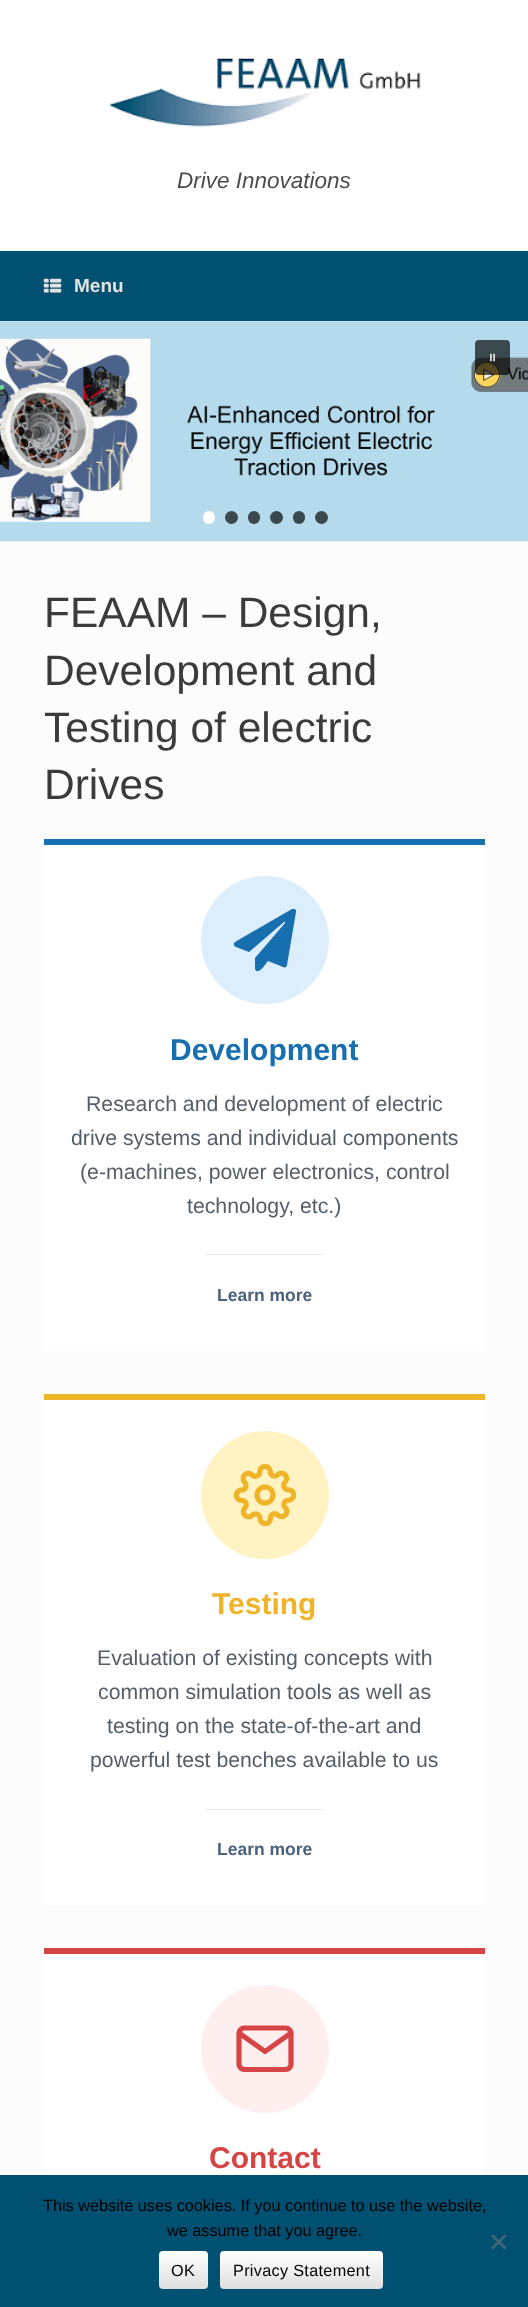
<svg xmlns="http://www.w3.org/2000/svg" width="528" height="2307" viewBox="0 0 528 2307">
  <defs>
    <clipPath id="clip1"><path d="M234 909h62v62H234z"/></clipPath>
    <linearGradient id="g1" gradientUnits="userSpaceOnUse" x1="159" y1="2289" x2="159" y2="2251"><stop offset="0" stop-color="#dfdfdf"/><stop offset="1" stop-color="#fff"/></linearGradient>
    <linearGradient id="g2" gradientUnits="userSpaceOnUse" x1="220" y1="2289" x2="220" y2="2251"><stop offset="0" stop-color="#dfdfdf"/><stop offset="1" stop-color="#fff"/></linearGradient>
  </defs>
  <rect width="100%" height="100%" fill="#fff"/>
  <image x="109" y="58" width="312" height="69" href="img/1.png"/>
  <path d="M0 251h528v70H0z" fill="#005071"/>
  <image x="43" y="278" width="19" height="15" href="img/2.png"/>
  <path d="M0 541h528v1634H0z" fill="#fcfcfc"/>
  <image x="0" y="321" width="528" height="221" href="img/3.png"/>
  <rect x="475" y="340" width="35" height="35" rx="4" fill="#000000ab"/>
  <image x="490" y="353" width="5" height="9" href="img/4.png"/>
  <rect x="203" y="511" width="12" height="13" rx="6" fill="#fff"/>
  <circle cx="231.5" cy="517.5" r="6.5" fill="#3b484e"/>
  <rect x="248" y="511" width="12" height="13" rx="6" fill="#3b484e"/>
  <circle cx="276.5" cy="517.5" r="6.5" fill="#3b484e"/>
  <rect x="293" y="511" width="12" height="13" rx="6" fill="#3b484e"/>
  <circle cx="321.5" cy="517.5" r="6.5" fill="#3b484e"/>
  <path d="M44 839h441v512H44z" fill="#00000033" filter="blur(0.5px)"/>
  <path d="M44 845h441v506H44z" fill="#fff"/>
  <path d="M44 839h441v6H44z" fill="#186faf"/>
  <circle cx="265" cy="940" r="64" fill="#dceefb"/>
  <g clip-path="url(#clip1)">
    <path d="M292 909L235 942C233 943 233 946 236 947L249 952L284 922C284 921 285 922 285 923L255 958V969C258 977 267 962 268 961L283 967C285 968 287 967 287 965L296 912C297 910 294 908 292 909Z" fill="#186faf"/>
  </g>
  <path d="M206 1254h117v1H206z" fill="#e4e8ec"/>
  <path d="M44 1394h441v511H44z" fill="#00000033" filter="blur(0.5px)"/>
  <path d="M44 1400h441v505H44z" fill="#fff"/>
  <path d="M44 1394h441v6H44z" fill="#f0b429"/>
  <circle cx="265" cy="1495" r="64" fill="#fff3c4"/>
  <image x="234" y="1464" width="62" height="62" href="img/5.png"/>
  <path d="M206 1809h117v1H206z" fill="#e4e8ec"/>
  <path d="M44 1948h441v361H44z" fill="#00000033" filter="blur(0.5px)"/>
  <path d="M44 1954h441v221H44z" fill="#fff"/>
  <path d="M44 1948h441v6H44z" fill="#d64545"/>
  <circle cx="265" cy="2049" r="64" fill="#fee"/>
  <path d="M244 2028H286C288.5 2028 291 2030.5 291 2033V2064.5C291 2067 288.5 2069.5 286 2069.5H244C241.5 2069.5 239 2067 239 2064.5V2033C239 2030.5 241.5 2028 244 2028ZM291 2033L265 2051.5L239 2033" fill="none" stroke="#d64545" stroke-width="5.2" stroke-linecap="round" stroke-linejoin="round"/>
  <path d="M0 2175h528v132H0z" fill="#005071"/>
  <path d="M504.5 2234.5L506.5 2236L493 2249.5L491 2247.5Z" fill="#406879"/>
  <path d="M491 2236L493 2234.5L506.5 2247.5L504.5 2249.5Z" fill="#406879"/>
  <rect x="159" y="2251" width="49" height="38" rx="4" fill="url(#g1)"/>
  <rect x="220" y="2251" width="163" height="38" rx="4" fill="url(#g2)"/>
  <text x="177" y="188" font-family="Liberation Sans" font-size="22.5" font-style="italic" fill="#4b4b4b">Drive Innovations</text>
  <text x="74" y="292" font-family="Liberation Sans" font-size="19" font-weight="bold" fill="#e2e2e2">Menu</text>
  <g font-family="Liberation Sans" font-size="42.5" fill="#3b3b3b">
    <text x="44" y="627">FEAAM – Design,</text>
    <text x="44" y="685">Development and</text>
    <text x="44" y="742">Testing of electric</text>
    <text x="44" y="799">Drives</text>
  </g>
  <text x="170" y="1060" font-family="Liberation Sans" font-size="30" font-weight="bold" fill="#186faf">Development</text>
  <g font-family="Liberation Sans" font-size="21.25" fill="#545e69">
    <text x="86" y="1111">Research and development of electric</text>
    <text x="71" y="1145">drive systems and individual components</text>
    <text x="80" y="1179">(e-machines, power electronics, control</text>
    <text x="187" y="1213">technology, etc.)</text>
  </g>
  <text x="217" y="1301" font-family="Liberation Sans" font-size="17.5" font-weight="bold" fill="#4a627b">Learn more</text>
  <text x="212" y="1614" font-family="Liberation Sans" font-size="30" font-weight="bold" fill="#f0b429">Testing</text>
  <g font-family="Liberation Sans" font-size="21.25" fill="#545e69">
    <text x="97" y="1665">Evaluation of existing concepts with</text>
    <text x="98" y="1699">common simulation tools as well as</text>
    <text x="107" y="1733">testing on the state-of-the-art and</text>
    <text x="90" y="1767">powerful test benches available to us</text>
  </g>
  <text x="217" y="1855" font-family="Liberation Sans" font-size="17.5" font-weight="bold" fill="#4a627b">Learn more</text>
  <text x="209" y="2168" font-family="Liberation Sans" font-size="30" font-weight="bold" fill="#d64545">Contact</text>
  <g font-family="Liberation Sans" font-size="16.25" fill="#000">
    <text x="43" y="2211">This website uses cookies. If you continue to use the website,</text>
    <text x="167" y="2236">we assume that you agree.</text>
  </g>
  <g font-family="Liberation Sans" font-size="16.25" letter-spacing="0.3" fill="#000">
    <text x="171" y="2276">OK</text>
    <text x="233" y="2276">Privacy Statement</text>
  </g>
</svg>
